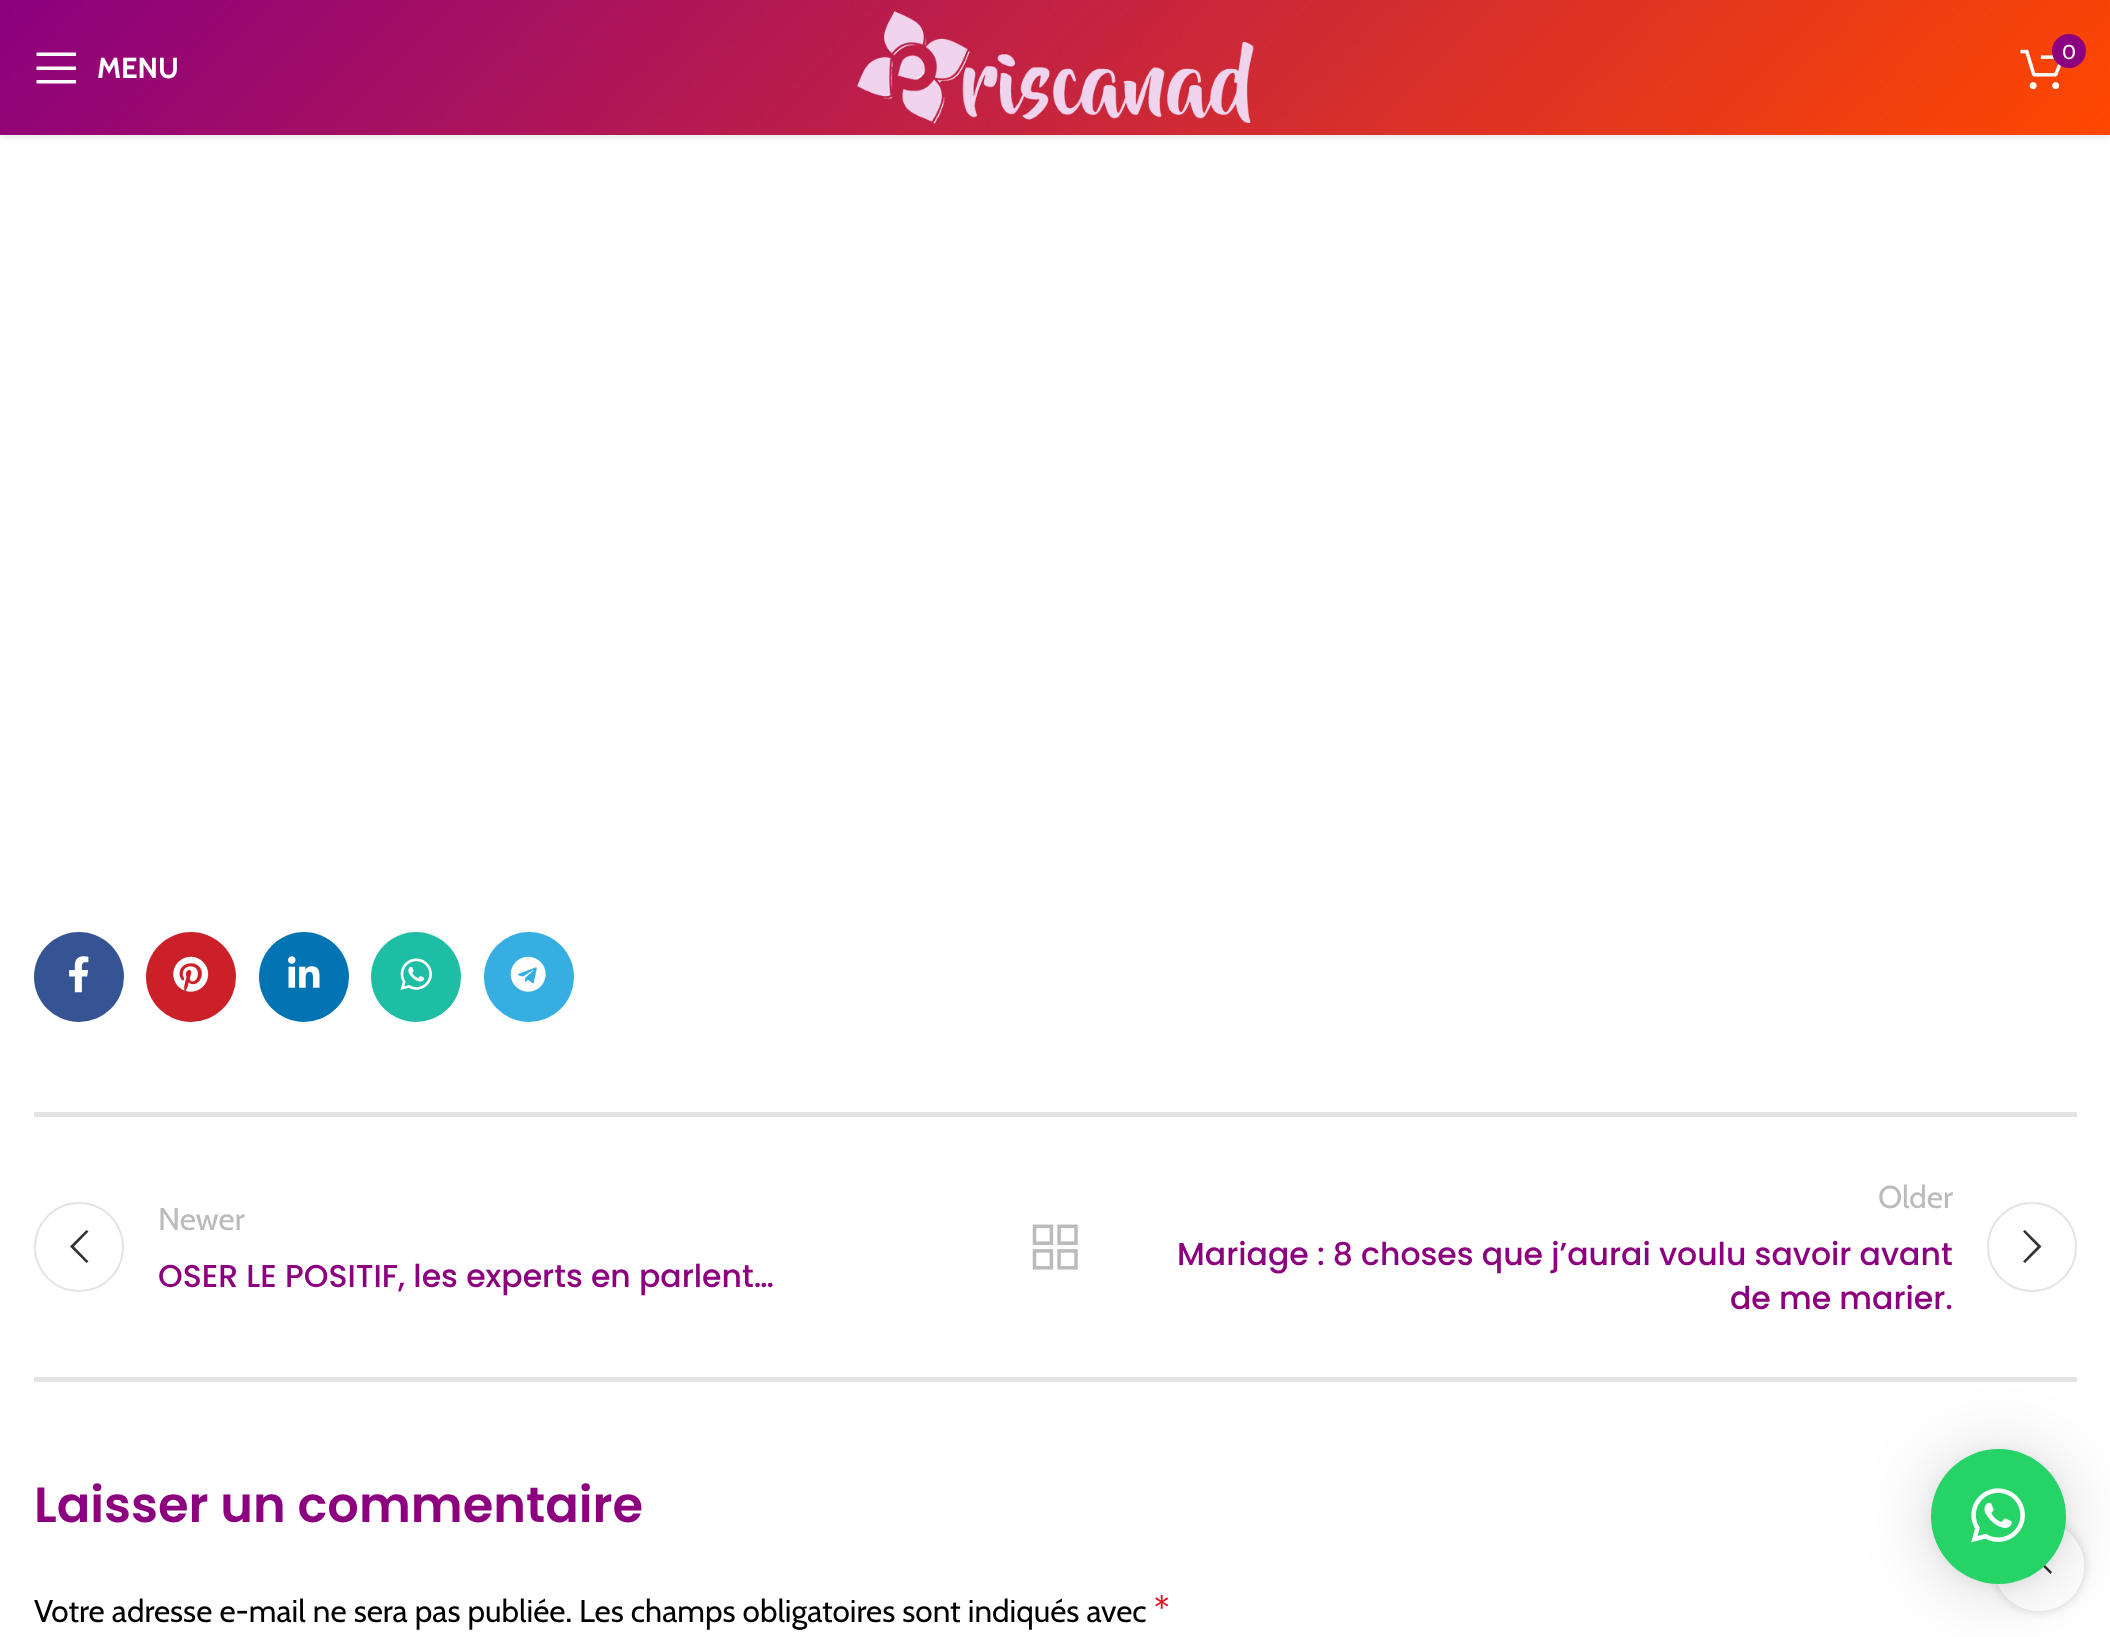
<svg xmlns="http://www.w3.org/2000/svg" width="2110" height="1637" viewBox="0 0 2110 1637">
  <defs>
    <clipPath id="clip1"><path d="M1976 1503H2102V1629H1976ZM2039 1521C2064 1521 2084 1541 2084 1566C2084 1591 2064 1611 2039 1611C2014 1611 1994 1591 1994 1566C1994 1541 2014 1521 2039 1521Z" clip-rule="evenodd"/></clipPath>
  </defs>
  <rect width="100%" height="100%" fill="#fff"/>
  <path d="M0 2h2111v135H0z" fill="#0000001a" filter="blur(3.5px)"/>
  <image x="0" y="0" width="2110" height="135" href="img/1.png"/>
  <image x="857" y="11" width="397" height="113" href="img/2.png"/>
  <image x="2020" y="49" width="41" height="41" href="img/3.png"/>
  <circle cx="2069" cy="51" r="17" fill="#8c007f"/>
  <path d="M36.5 56H76V52.5H36.5ZM36.5 70H76V66.5H36.5ZM36.5 83.5H76V80H36.5Z" fill="#fff"/>
  <circle cx="79" cy="977" r="45" fill="#365493"/>
  <image x="69" y="956" width="20" height="37" href="img/4.png"/>
  <circle cx="191" cy="977" r="45" fill="#cb2027"/>
  <image x="173" y="956" width="36" height="36" href="img/5.png"/>
  <circle cx="304" cy="977" r="45" fill="#0274b3"/>
  <image x="288" y="956" width="32" height="32" href="img/6.png"/>
  <circle cx="416" cy="977" r="45" fill="#1ebea5"/>
  <image x="400" y="958" width="32" height="32" href="img/7.png"/>
  <circle cx="529" cy="977" r="45" fill="#37aee2"/>
  <image x="510" y="956" width="36" height="36" href="img/8.png"/>
  <path d="M34 1112h2043v5H34z" fill="#e4e4e4"/>
  <path d="M34 1377h2043v5H34z" fill="#e4e4e4"/>
  <circle cx="79" cy="1247" r="44" fill="none" stroke="#e4e4e4" stroke-width="2"/>
  <path d="M88.5 1231.5L86.5 1230L70 1246.5L86.5 1263L88.5 1261.5L74 1246.5Z" fill="#333"/>
  <image x="1032" y="1224" width="46" height="46" href="img/9.png"/>
  <circle cx="2032" cy="1247" r="44" fill="none" stroke="#e4e4e4" stroke-width="2"/>
  <path d="M2023 1231.5L2037.5 1246.5L2023 1261.5L2025 1263L2041.5 1246.5L2025 1230Z" fill="#333"/>
  <g clip-path="url(#clip1)">
    <rect x="1994" y="1521" width="90" height="90" rx="45" fill="#0000002b" filter="blur(5.5px)"/>
  </g>
  <circle cx="2039" cy="1566" r="45" fill="#ffffffe6"/>
  <path d="M2050.5 1574L2052 1572L2037.5 1557.5L2023 1572L2024.5 1574L2037.5 1561Z" fill="#333"/>
  <rect x="1931" y="1454" width="135" height="135" rx="67.5" fill="#00000029" filter="blur(36px)"/>
  <rect x="1931" y="1451" width="135" height="135" rx="67.5" fill="#0000000f" filter="blur(7px)"/>
  <circle cx="1998.5" cy="1516.5" r="67.5" fill="#25d366"/>
  <image x="1971" y="1488" width="54" height="55" href="img/10.png"/>
  <text x="2062" y="59" font-family="Cabin" font-size="20" fill="#fff">0</text>
  <text x="97" y="78" font-family="Cabin" font-size="29" font-weight="bold" fill="#fff">MENU</text>
  <text x="158" y="1230" font-family="Cabin" font-size="31.5" fill="#bbb">Newer</text>
  <text x="158" y="1287" font-family="Poppins" font-size="31.5" font-weight="500" fill="#8c007f">OSER LE POSITIF, les experts en parlent…</text>
  <text x="1878" y="1208" font-family="Cabin" font-size="31.5" fill="#bbb">Older</text>
  <g font-family="Poppins" font-size="31.5" font-weight="500" fill="#8c007f">
    <text x="1177" y="1265">Mariage : 8 choses que j’aurai voulu savoir avant</text>
    <text x="1730" y="1309">de me marier.</text>
  </g>
  <text x="34" y="1522" font-family="Poppins" font-size="49.5" font-weight="600" fill="#8c007f">Laisser un commentaire</text>
  <text x="34" y="1622" font-family="Cabin" font-size="31.5" fill="#000">Votre adresse e-mail ne sera pas publiée. Les champs obligatoires sont indiqués avec</text>
  <text x="1154" y="1622" font-family="Cabin" font-size="36" fill="#e01020">*</text>
</svg>
